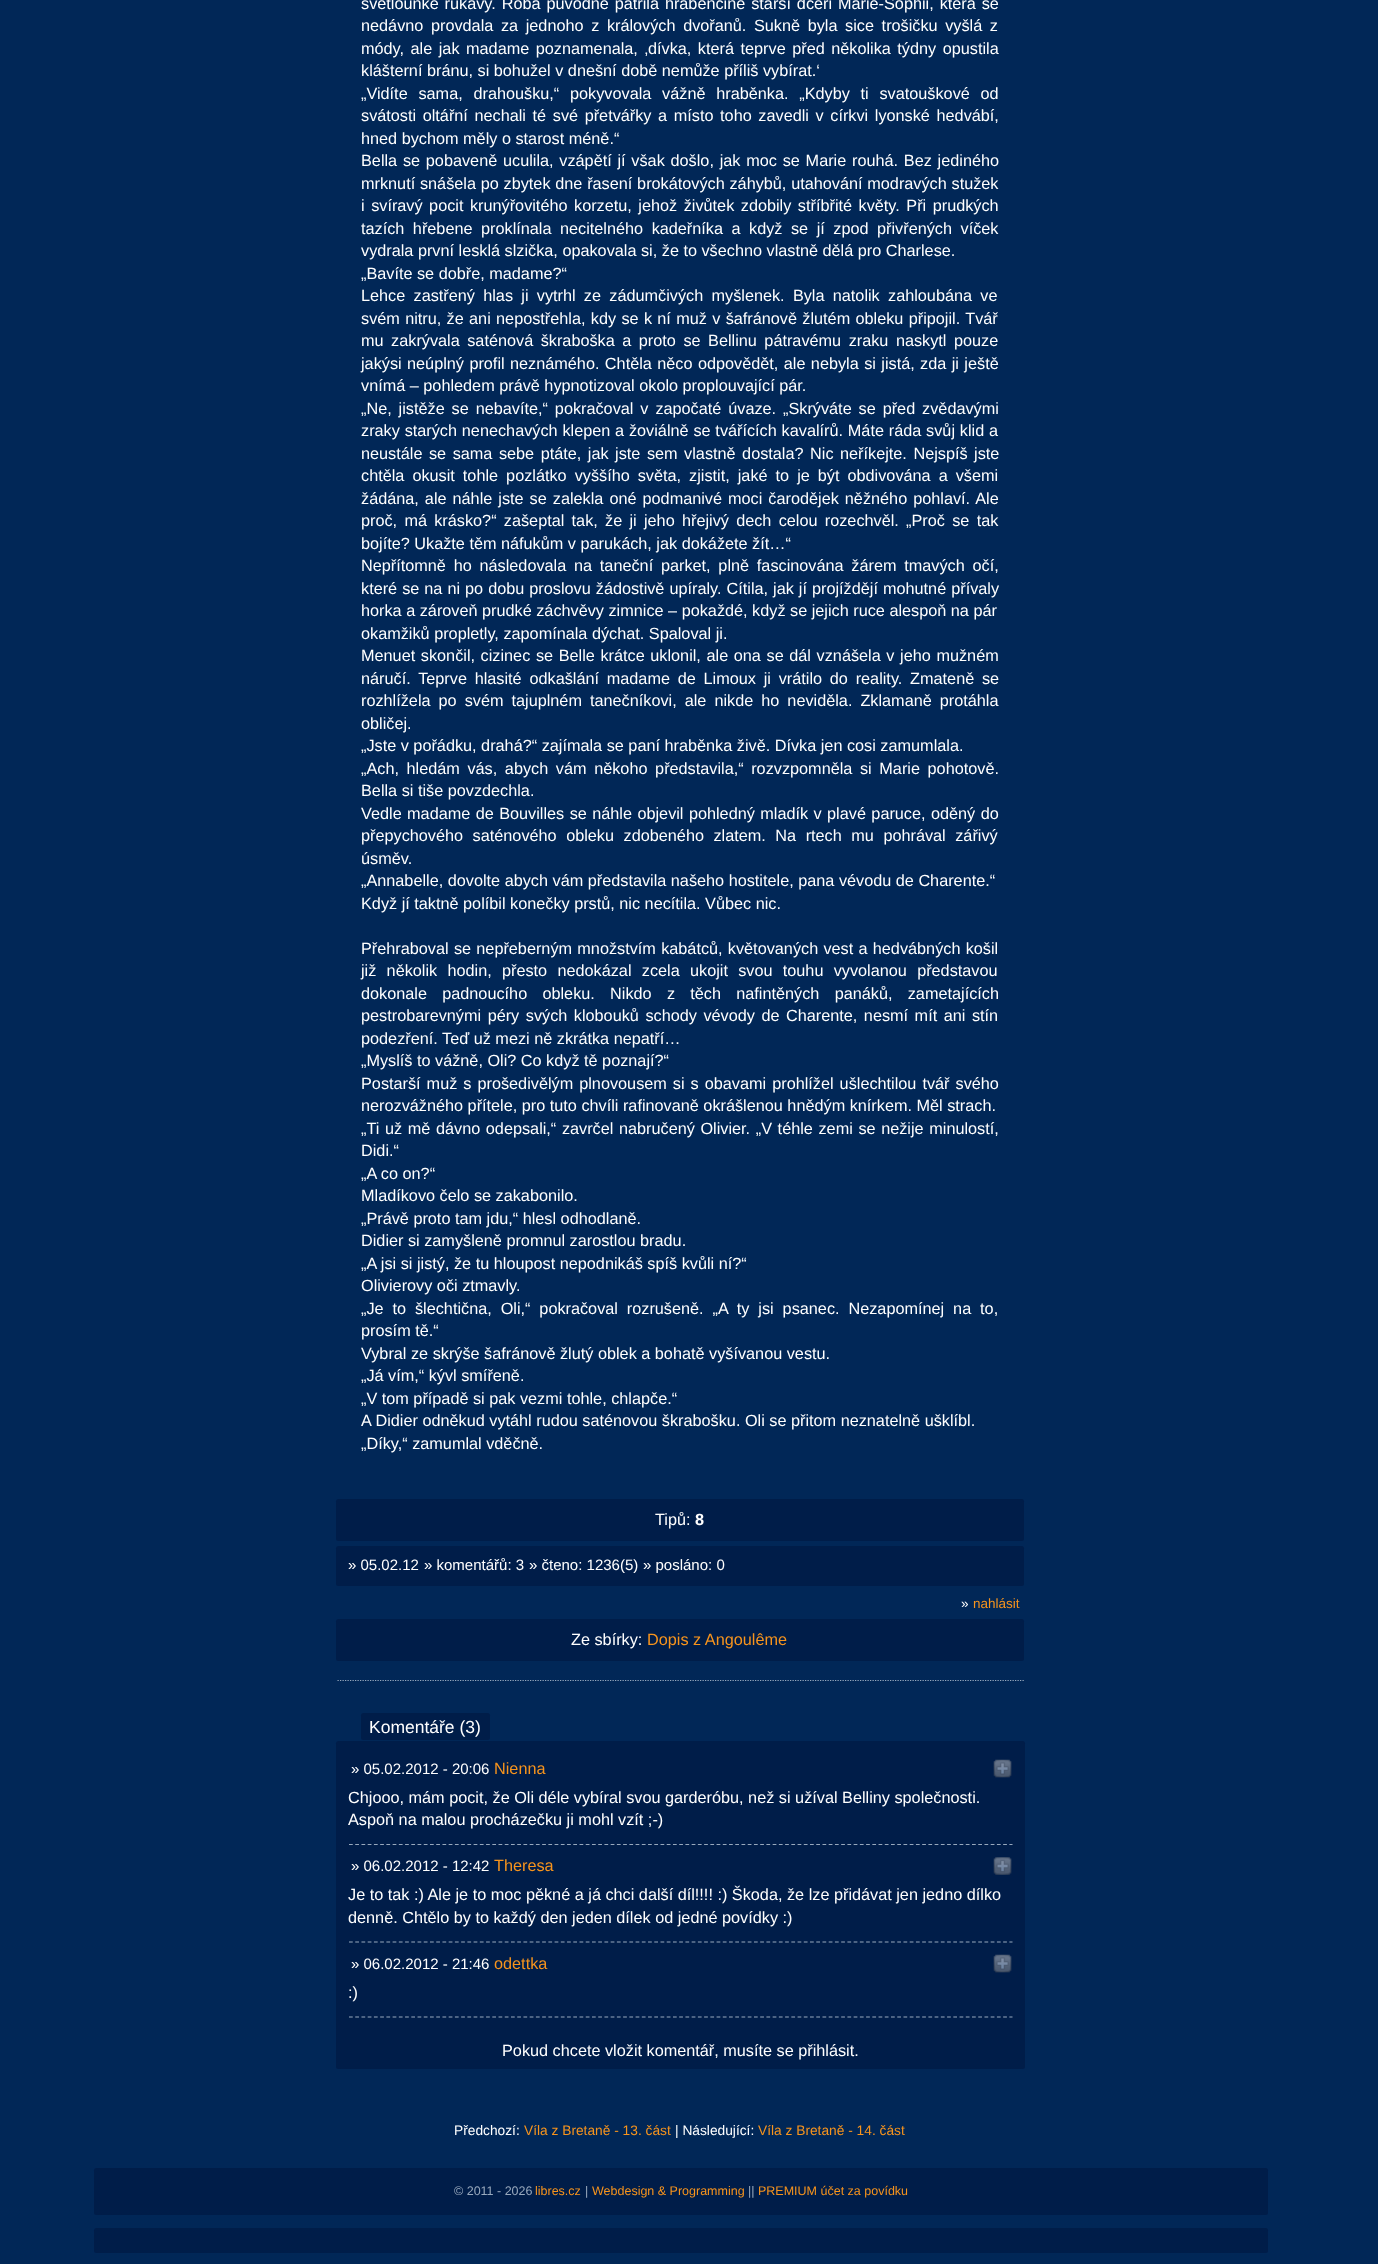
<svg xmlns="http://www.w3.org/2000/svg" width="1378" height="2264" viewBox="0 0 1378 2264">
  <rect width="100%" height="100%" fill="#012757"/>
  <rect x="336" y="1499" width="688" height="42" rx="2.5" fill="#001d49"/>
  <rect x="336" y="1546" width="688" height="40" rx="2.5" fill="#001d49"/>
  <rect x="336" y="1619" width="688" height="42" rx="2.5" fill="#001d49"/>
  <path d="M337.5 1680.5H1025" fill="none" stroke="#98a9bd" stroke-width="1.2" stroke-dasharray="1.25 1.25"/>
  <rect x="361" y="1713" width="129" height="27" rx="2.5" fill="#001d49"/>
  <rect x="336" y="1741" width="689" height="328" rx="2.5" fill="#001d49"/>
  <path d="M349 1844.5H1012.5" fill="none" stroke="#98a9bd" stroke-width="1.2" stroke-dasharray="3.75 2.48"/>
  <image x="993" y="1759" width="19" height="19" href="img/1.png"/>
  <path d="M349 1942H1012.5" fill="none" stroke="#98a9bd" stroke-width="1.2" stroke-dasharray="3.75 2.48"/>
  <image x="993" y="1857" width="19" height="18" href="img/2.png"/>
  <path d="M349 2017H1012.5" fill="none" stroke="#98a9bd" stroke-width="1.2" stroke-dasharray="3.75 2.48"/>
  <image x="993" y="1954" width="19" height="19" href="img/3.png"/>
  <rect x="94" y="2168" width="1174" height="47" rx="2.5" fill="#001d49"/>
  <rect x="94" y="2228" width="1174" height="25" rx="2.5" fill="#001d49"/>
  <g font-family="Liberation Sans" font-size="16.25" fill="#fff">
    <text x="361" y="9" word-spacing="1.4">světlounké rukávy. Róba původně patřila hraběnčině starší dceři Marie-Sophii, která se</text>
    <text x="361" y="31" word-spacing="3.1">nedávno provdala za jednoho z králových dvořanů. Sukně byla sice trošičku vyšlá z</text>
    <text x="361" y="54" word-spacing="2">módy, ale jak madame poznamenala, ‚dívka, která teprve před několika týdny opustila</text>
    <text x="361" y="76">klášterní bránu, si bohužel v dnešní době nemůže příliš vybírat.‘</text>
    <text x="361" y="99" word-spacing="6.25">„Vidíte sama, drahoušku,“ pokyvovala vážně hraběnka. „Kdyby ti svatouškové od</text>
    <text x="361" y="121" word-spacing="2.1">svátosti oltářní nechali té své přetvářky a místo toho zavedli v církvi lyonské hedvábí,</text>
    <text x="361" y="144">hned bychom měly o starost méně.“</text>
    <text x="361" y="166" word-spacing="1.25">Bella se pobaveně uculila, vzápětí jí však došlo, jak moc se Marie rouhá. Bez jediného</text>
    <text x="361" y="189" word-spacing="0.25">mrknutí snášela po zbytek dne řasení brokátových záhybů, utahování modravých stužek</text>
    <text x="361" y="211" word-spacing="2">i svíravý pocit krunýřovitého korzetu, jehož živůtek zdobily stříbřité květy. Při prudkých</text>
    <text x="361" y="234" word-spacing="4">tazích hřebene proklínala necitelného kadeřníka a když se jí zpod přivřených víček</text>
    <text x="361" y="256">vydrala první lesklá slzička, opakovala si, že to všechno vlastně dělá pro Charlese.</text>
    <text x="361" y="279">„Bavíte se dobře, madame?“</text>
    <text x="361" y="301" word-spacing="3.75">Lehce zastřený hlas ji vytrhl ze zádumčivých myšlenek. Byla natolik zahloubána ve</text>
    <text x="361" y="324" word-spacing="0.8">svém nitru, že ani nepostřehla, kdy se k ní muž v šafránově žlutém obleku připojil. Tvář</text>
    <text x="361" y="346" word-spacing="3">mu zakrývala saténová škraboška a proto se Bellinu pátravému zraku naskytl pouze</text>
    <text x="361" y="369" word-spacing="0.9">jakýsi neúplný profil neznámého. Chtěla něco odpovědět, ale nebyla si jistá, zda ji ještě</text>
    <text x="361" y="391">vnímá – pohledem právě hypnotizoval okolo proplouvající pár.</text>
    <text x="361" y="414" word-spacing="2.4">„Ne, jistěže se nebavíte,“ pokračoval v započaté úvaze. „Skrýváte se před zvědavými</text>
    <text x="361" y="436" word-spacing="0.3">zraky starých nenechavých klepen a žoviálně se tvářících kavalírů. Máte ráda svůj klid a</text>
    <text x="361" y="459" word-spacing="2">neustále se sama sebe ptáte, jak jste sem vlastně dostala? Nic neříkejte. Nejspíš jste</text>
    <text x="361" y="481" word-spacing="3.5">chtěla okusit tohle pozlátko vyššího světa, zjistit, jaké to je být obdivována a všemi</text>
    <text x="361" y="504" word-spacing="1.5">žádána, ale náhle jste se zalekla oné podmanivé moci čarodějek něžného pohlaví. Ale</text>
    <text x="361" y="526" word-spacing="2.75">proč, má krásko?“ zašeptal tak, že ji jeho hřejivý dech celou rozechvěl. „Proč se tak</text>
    <text x="361" y="549">bojíte? Ukažte těm náfukům v parukách, jak dokážete žít…“</text>
    <text x="361" y="571" word-spacing="3.25">Nepřítomně ho následovala na taneční parket, plně fascinována žárem tmavých očí,</text>
    <text x="361" y="594" word-spacing="0.5">které se na ni po dobu proslovu žádostivě upíraly. Cítila, jak jí projíždějí mohutné přívaly</text>
    <text x="361" y="616">horka a zároveň prudké záchvěvy zimnice – pokaždé, když se jejich ruce alespoň na pár</text>
    <text x="361" y="639">okamžiků propletly, zapomínala dýchat. Spaloval ji.</text>
    <text x="361" y="661" word-spacing="1.1">Menuet skončil, cizinec se Belle krátce uklonil, ale ona se dál vznášela v jeho mužném</text>
    <text x="361" y="684" word-spacing="3.25">náručí. Teprve hlasité odkašlání madame de Limoux ji vrátilo do reality. Zmateně se</text>
    <text x="361" y="706" word-spacing="3.5">rozhlížela po svém tajuplném tanečníkovi, ale nikde ho neviděla. Zklamaně protáhla</text>
    <text x="361" y="729">obličej.</text>
    <text x="361" y="751">„Jste v pořádku, drahá?“ zajímala se paní hraběnka živě. Dívka jen cosi zamumlala.</text>
    <text x="361" y="774" word-spacing="3.1">„Ach, hledám vás, abych vám někoho představila,“ rozvzpomněla si Marie pohotově.</text>
    <text x="361" y="796">Bella si tiše povzdechla.</text>
    <text x="361" y="819" word-spacing="0.9">Vedle madame de Bouvilles se náhle objevil pohledný mladík v plavé paruce, oděný do</text>
    <text x="361" y="841" word-spacing="5">přepychového saténového obleku zdobeného zlatem. Na rtech mu pohrával zářivý</text>
    <text x="361" y="864">úsměv.</text>
    <text x="361" y="886">„Annabelle, dovolte abych vám představila našeho hostitele, pana vévodu de Charente.“</text>
    <text x="361" y="909">Když jí taktně políbil konečky prstů, nic necítila. Vůbec nic.</text>
    <text x="361" y="954" word-spacing="0.75">Přehraboval se nepřeberným množstvím kabátců, květovaných vest a hedvábných košil</text>
    <text x="361" y="976" word-spacing="5.75">již několik hodin, přesto nedokázal zcela ukojit svou touhu vyvolanou představou</text>
    <text x="361" y="999" word-spacing="10.75">dokonale padnoucího obleku. Nikdo z těch nafintěných panáků, zametajících</text>
    <text x="361" y="1021" word-spacing="2">pestrobarevnými péry svých klobouků schody vévody de Charente, nesmí mít ani stín</text>
    <text x="361" y="1044">podezření. Teď už mezi ně zkrátka nepatří…</text>
    <text x="361" y="1066">„Myslíš to vážně, Oli? Co když tě poznají?“</text>
    <text x="361" y="1089" word-spacing="1.5">Postarší muž s prošedivělým plnovousem si s obavami prohlížel ušlechtilou tvář svého</text>
    <text x="361" y="1111">nerozvážného přítele, pro tuto chvíli rafinovaně okrášlenou hnědým knírkem. Měl strach.</text>
    <text x="361" y="1134" word-spacing="1.1">„Ti už mě dávno odepsali,“ zavrčel nabručený Olivier. „V téhle zemi se nežije minulostí,</text>
    <text x="361" y="1156">Didi.“</text>
    <text x="361" y="1179">„A co on?“</text>
    <text x="361" y="1201">Mladíkovo čelo se zakabonilo.</text>
    <text x="361" y="1224">„Právě proto tam jdu,“ hlesl odhodlaně.</text>
    <text x="361" y="1246">Didier si zamyšleně promnul zarostlou bradu.</text>
    <text x="361" y="1269">„A jsi si jistý, že tu hloupost nepodnikáš spíš kvůli ní?“</text>
    <text x="361" y="1291">Olivierovy oči ztmavly.</text>
    <text x="361" y="1314" word-spacing="4.4">„Je to šlechtična, Oli,“ pokračoval rozrušeně. „A ty jsi psanec. Nezapomínej na to,</text>
    <text x="361" y="1336">prosím tě.“</text>
    <text x="361" y="1359">Vybral ze skrýše šafránově žlutý oblek a bohatě vyšívanou vestu.</text>
    <text x="361" y="1381">„Já vím,“ kývl smířeně.</text>
    <text x="361" y="1404">„V tom případě si pak vezmi tohle, chlapče.“</text>
    <text x="361" y="1426">A Didier odněkud vytáhl rudou saténovou škrabošku. Oli se přitom neznatelně ušklíbl.</text>
    <text x="361" y="1449">„Díky,“ zamumlal vděčně.</text>
    <text x="655" y="1525">Tipů:</text>
  </g>
  <text x="695" y="1525" font-family="Liberation Sans" font-size="16.25" font-weight="bold" fill="#fff">8</text>
  <g font-family="Liberation Sans" font-size="15" fill="#fff">
    <text x="348" y="1570">» 05.02.12</text>
    <text x="424" y="1570">» komentářů: 3</text>
    <text x="529" y="1570">» čteno: 1236(5)</text>
    <text x="643" y="1570">» posláno: 0</text>
  </g>
  <text x="961" y="1608" font-family="Liberation Sans" font-size="13.5" fill="#fff">»</text>
  <text x="973" y="1608" font-family="Liberation Sans" font-size="13.5" fill="#f7941d">nahlásit</text>
  <text x="571" y="1645" font-family="Liberation Sans" font-size="16.25" fill="#fff">Ze sbírky:</text>
  <text x="647" y="1645" font-family="Liberation Sans" font-size="16.25" fill="#f7941d">Dopis z Angoulême</text>
  <text x="369" y="1733" font-family="Liberation Sans" font-size="17.5" fill="#fff">Komentáře (3)</text>
  <text x="351" y="1774" font-family="Liberation Sans" font-size="15" fill="#fff">» 05.02.2012 - 20:06</text>
  <text x="494" y="1774" font-family="Liberation Sans" font-size="16.25" fill="#f7941d">Nienna</text>
  <g font-family="Liberation Sans" font-size="16.25" fill="#fff">
    <text x="348" y="1803">Chjooo, mám pocit, že Oli déle vybíral svou garderóbu, než si užíval Belliny společnosti.</text>
    <text x="348" y="1825">Aspoň na malou procházečku ji mohl vzít ;-)</text>
  </g>
  <text x="351" y="1871" font-family="Liberation Sans" font-size="15" fill="#fff">» 06.02.2012 - 12:42</text>
  <text x="494" y="1871" font-family="Liberation Sans" font-size="16.25" fill="#f7941d">Theresa</text>
  <g font-family="Liberation Sans" font-size="16.25" fill="#fff">
    <text x="348" y="1900">Je to tak :) Ale je to moc pěkné a já chci další díl!!!! :) Škoda, že lze přidávat jen jedno dílko</text>
    <text x="348" y="1923">denně. Chtělo by to každý den jeden dílek od jedné povídky :)</text>
  </g>
  <text x="351" y="1969" font-family="Liberation Sans" font-size="15" fill="#fff">» 06.02.2012 - 21:46</text>
  <text x="494" y="1969" font-family="Liberation Sans" font-size="16.25" fill="#f7941d">odettka</text>
  <g font-family="Liberation Sans" font-size="16.25" fill="#fff">
    <text x="348" y="1998">:)</text>
    <text x="502" y="2056">Pokud chcete vložit komentář, musíte se přihlásit.</text>
  </g>
  <text x="454" y="2135" font-family="Liberation Sans" font-size="13.75" fill="#fff">Předchozí:</text>
  <text x="524" y="2135" font-family="Liberation Sans" font-size="13.75" fill="#f7941d">Víla z Bretaně - 13. část</text>
  <text x="675" y="2135" font-family="Liberation Sans" font-size="13.75" fill="#fff">| Následující:</text>
  <text x="758" y="2135" font-family="Liberation Sans" font-size="13.75" fill="#f7941d">Víla z Bretaně - 14. část</text>
  <text x="454" y="2195" font-family="Liberation Sans" font-size="12.5" fill="#98a9bd">© 2011 - 2026</text>
  <text x="535" y="2195" font-family="Liberation Sans" font-size="12.5" fill="#f7941d">libres.cz</text>
  <text x="585" y="2195" font-family="Liberation Sans" font-size="12.5" fill="#98a9bd">|</text>
  <text x="592" y="2195" font-family="Liberation Sans" font-size="12.5" fill="#f7941d">Webdesign &amp; Programming</text>
  <text x="748" y="2195" font-family="Liberation Sans" font-size="12.5" fill="#98a9bd">||</text>
  <text x="758" y="2195" font-family="Liberation Sans" font-size="12.5" fill="#f7941d">PREMIUM účet za povídku</text>
</svg>
